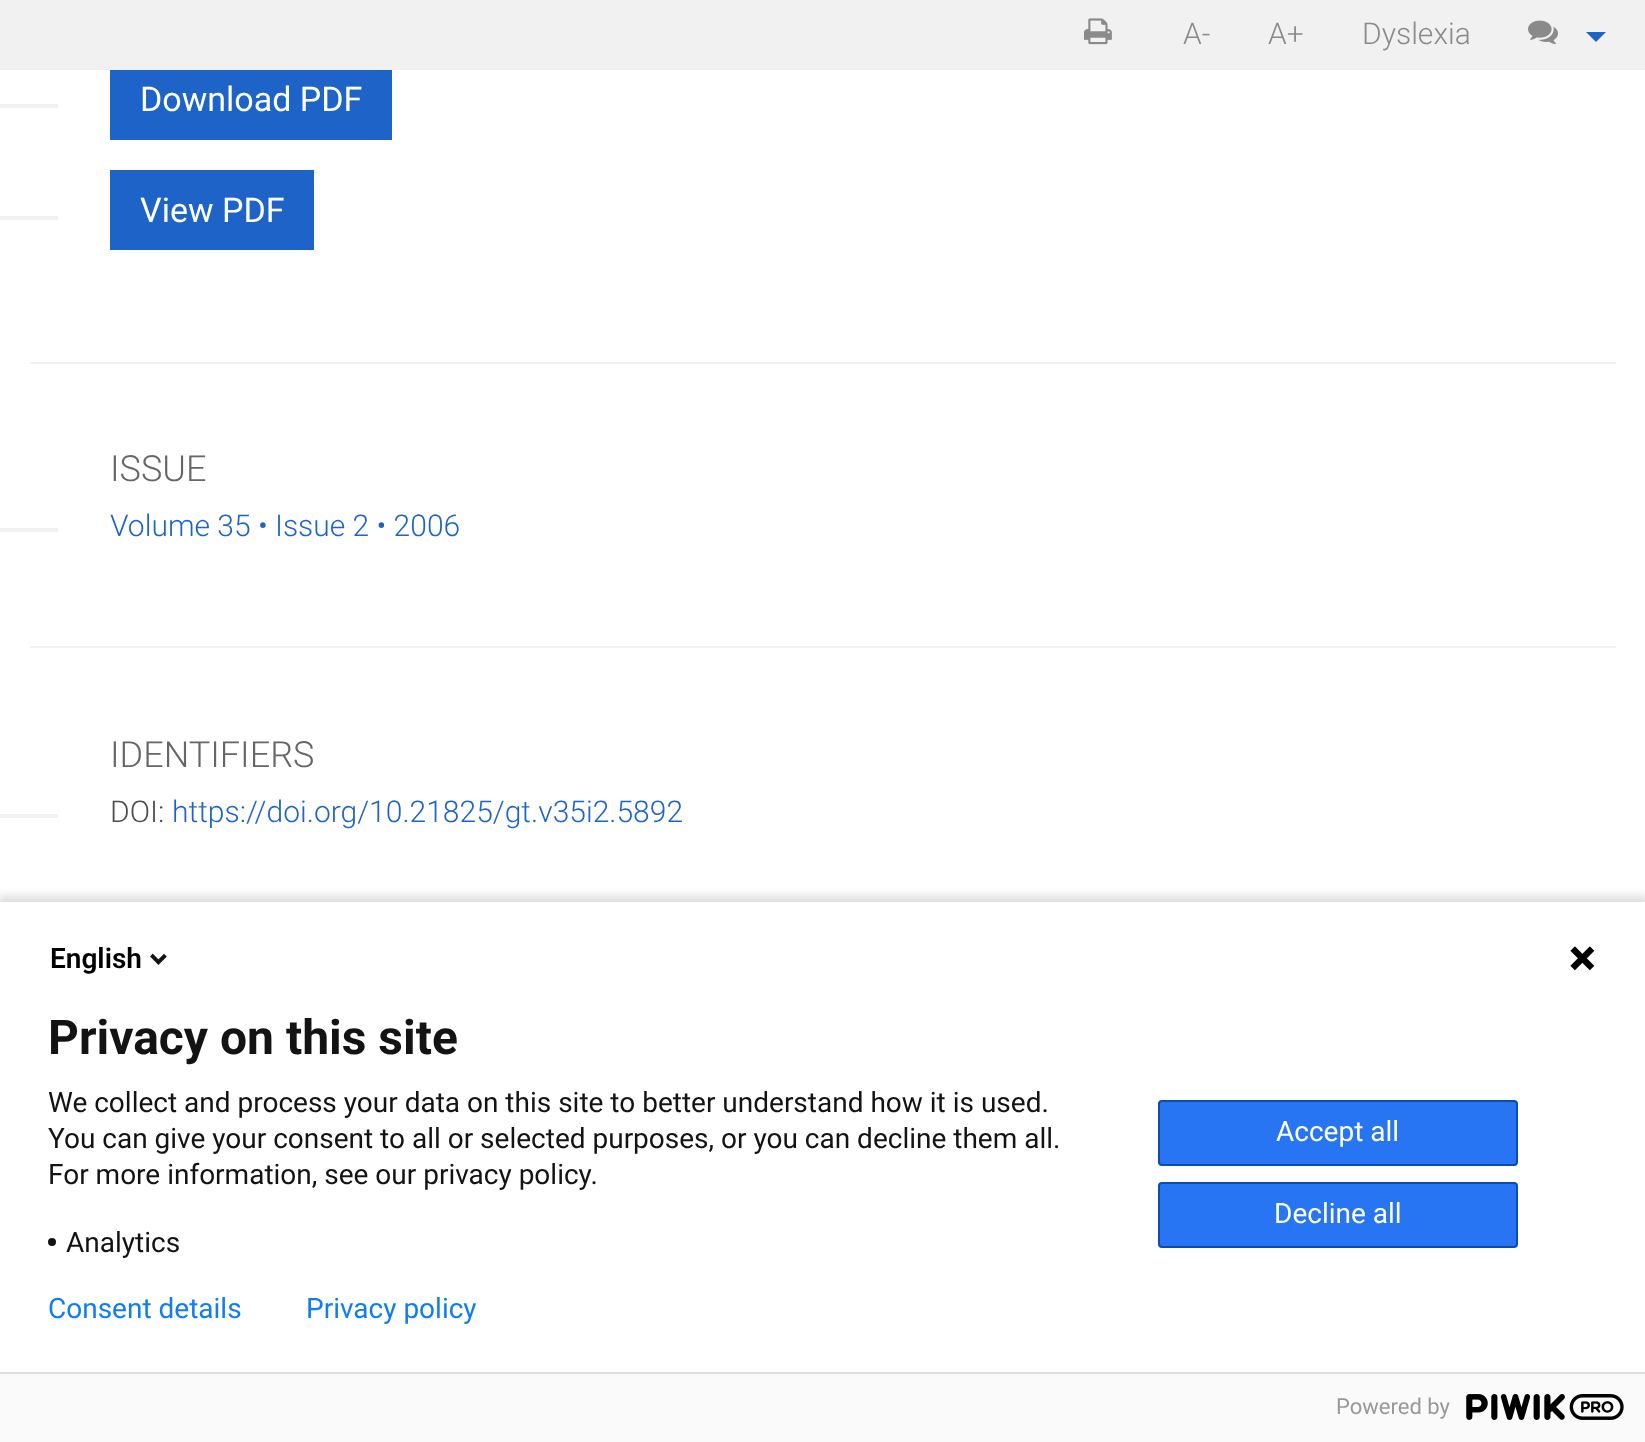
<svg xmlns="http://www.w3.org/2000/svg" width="1645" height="1442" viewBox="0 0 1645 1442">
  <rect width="100%" height="100%" fill="#fff"/>
  <path d="M0 0h1645v70H0z" fill="#f1f1f1"/>
  <image x="1084" y="18" width="28" height="27" href="img/1.png"/>
  <image x="1528" y="20" width="30" height="25" href="img/2.png"/>
  <path d="M1586 32H1606L1596 42Z" fill="#1e64c8"/>
  <path d="M30 362h1586v2H30z" fill="#f1f1f1"/>
  <path d="M0 104h58v4H0z" fill="#f1f1f1"/>
  <path d="M110 70h282v70H110z" fill="#1e64c8"/>
  <path d="M0 216h58v4H0z" fill="#f1f1f1"/>
  <path d="M110 170h204v80H110z" fill="#1e64c8"/>
  <path d="M30 646h1586v2H30z" fill="#f1f1f1"/>
  <path d="M0 528h58v4H0z" fill="#f1f1f1"/>
  <path d="M0 814h58v4H0z" fill="#f1f1f1"/>
  <path d="M-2 896h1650v544H-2z" fill="#00000024" filter="blur(5px)"/>
  <path d="M0 902h1645v470H0z" fill="#fff"/>
  <image x="150" y="953" width="17" height="12" href="img/3.png"/>
  <image x="1570" y="946" width="25" height="25" href="img/4.png"/>
  <circle cx="52" cy="1242" r="4" fill="#131313"/>
  <rect x="1159" y="1101" width="358" height="64" rx="3" fill="#2775f2" stroke="#0b4bb3" stroke-width="2"/>
  <rect x="1159" y="1183" width="358" height="64" rx="3" fill="#2775f2" stroke="#0b4bb3" stroke-width="2"/>
  <path d="M0 1374h1645v68H0z" fill="#fafafa"/>
  <path d="M0 1372h1645v2H0z" fill="#ddd"/>
  <image x="1466" y="1394" width="158" height="26" href="img/5.png"/>
  <g font-family="Roboto" font-size="30" font-weight="300" fill="#8a8a8a">
    <text x="1183" y="44">A-</text>
    <text x="1268" y="44">A+</text>
    <text x="1362" y="44">Dyslexia</text>
  </g>
  <g font-family="Roboto" font-size="34" fill="#fff">
    <text x="140" y="111">Download PDF</text>
    <text x="140" y="222">View PDF</text>
  </g>
  <text x="110" y="481" font-family="Roboto" font-size="36" font-weight="300" fill="#666">ISSUE</text>
  <text x="110" y="536" font-family="Roboto" font-size="30" font-weight="300" fill="#1e64c8">Volume 35 • Issue 2 • 2006</text>
  <text x="110" y="767" font-family="Roboto" font-size="36" font-weight="300" fill="#666">IDENTIFIERS</text>
  <text x="110" y="822" font-family="Roboto" font-size="30" font-weight="300" fill="#4d4d4d">DOI:</text>
  <text x="172" y="822" font-family="Roboto" font-size="30" font-weight="300" fill="#1e64c8">https://doi.org/10.21825/gt.v35i2.5892</text>
  <text x="50" y="968" font-family="Roboto" font-size="28" font-weight="600" fill="#000">English</text>
  <text x="48" y="1054" font-family="Roboto" font-size="48" font-weight="bold" fill="#131313">Privacy on this site</text>
  <g font-family="Roboto" font-size="28" fill="#131313">
    <text x="48" y="1112">We collect and process your data on this site to better understand how it is used.</text>
    <text x="48" y="1148">You can give your consent to all or selected purposes, or you can decline them all.</text>
    <text x="48" y="1184">For more information, see our privacy policy.</text>
    <text x="66" y="1252">Analytics</text>
  </g>
  <g font-family="Roboto" font-size="28" fill="#fff">
    <text x="1276" y="1141">Accept all</text>
    <text x="1274" y="1223">Decline all</text>
  </g>
  <g font-family="Roboto" font-size="28" fill="#107ef1">
    <text x="48" y="1318">Consent details</text>
    <text x="306" y="1318">Privacy policy</text>
  </g>
  <text x="1336" y="1414" font-family="Roboto" font-size="22" fill="#999">Powered by</text>
</svg>
